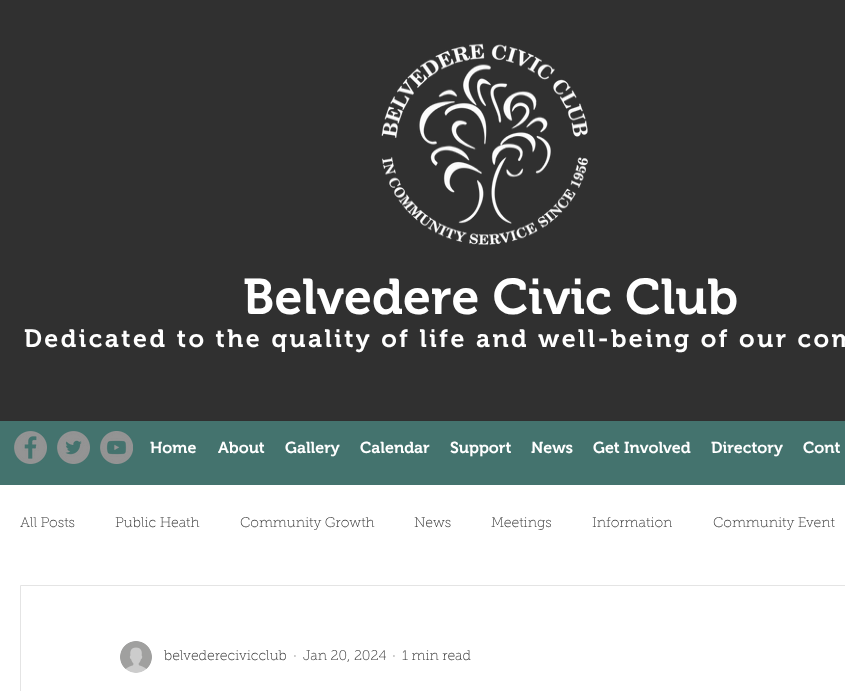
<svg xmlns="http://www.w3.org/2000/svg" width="845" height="691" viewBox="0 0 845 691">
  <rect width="100%" height="100%" fill="#44736e"/>
  <path d="M0 0h845v421H0z" fill="#303030"/>
  <image x="381" y="43" width="207" height="202" href="img/1.png"/>
  <image x="14" y="431" width="33" height="33" href="img/2.png"/>
  <image x="57" y="431" width="33" height="33" href="img/3.png"/>
  <image x="100" y="431" width="33" height="33" href="img/4.png"/>
  <path d="M0 485h845v206H0z" fill="#fff"/>
  <path d="M20.5 585.5h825v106H20.5z" fill="none" stroke="#e4e4e4"/>
  <image x="120" y="641" width="32" height="32" href="img/5.png"/>
  <text x="243" y="314" font-family="'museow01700'" font-size="50" font-weight="600" fill="#fff">Belvedere Civic Club</text>
  <text x="24" y="347" font-family="'museow01700'" font-size="25" font-weight="600" letter-spacing="2.5" fill="#fff">Dedicated to the quality of life and well-being of our com</text>
  <g font-family="'museow01700'" font-size="16" font-weight="600" fill="#fff">
    <text x="150" y="453">Home</text>
    <text x="218" y="453">About</text>
    <text x="285" y="453">Gallery</text>
    <text x="360" y="453">Calendar</text>
    <text x="450" y="453">Support</text>
    <text x="531" y="453">News</text>
    <text x="593" y="453">Get Involved</text>
    <text x="711" y="453">Directory</text>
    <text x="803" y="453">Cont</text>
  </g>
  <g font-family="'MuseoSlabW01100'" font-size="14" font-weight="100" fill="#303030">
    <text x="20" y="527">All Posts</text>
    <text x="115" y="527">Public Heath</text>
    <text x="240" y="527">Community Growth</text>
    <text x="414" y="527">News</text>
    <text x="491" y="527">Meetings</text>
    <text x="592" y="527">Information</text>
    <text x="713" y="527">Community Event</text>
    <text x="164" y="660">belvederecivicclub</text>
    <text x="293" y="660">·</text>
    <text x="303" y="660">Jan 20, 2024</text>
    <text x="392" y="660">·</text>
    <text x="402" y="660">1 min read</text>
  </g>
</svg>
